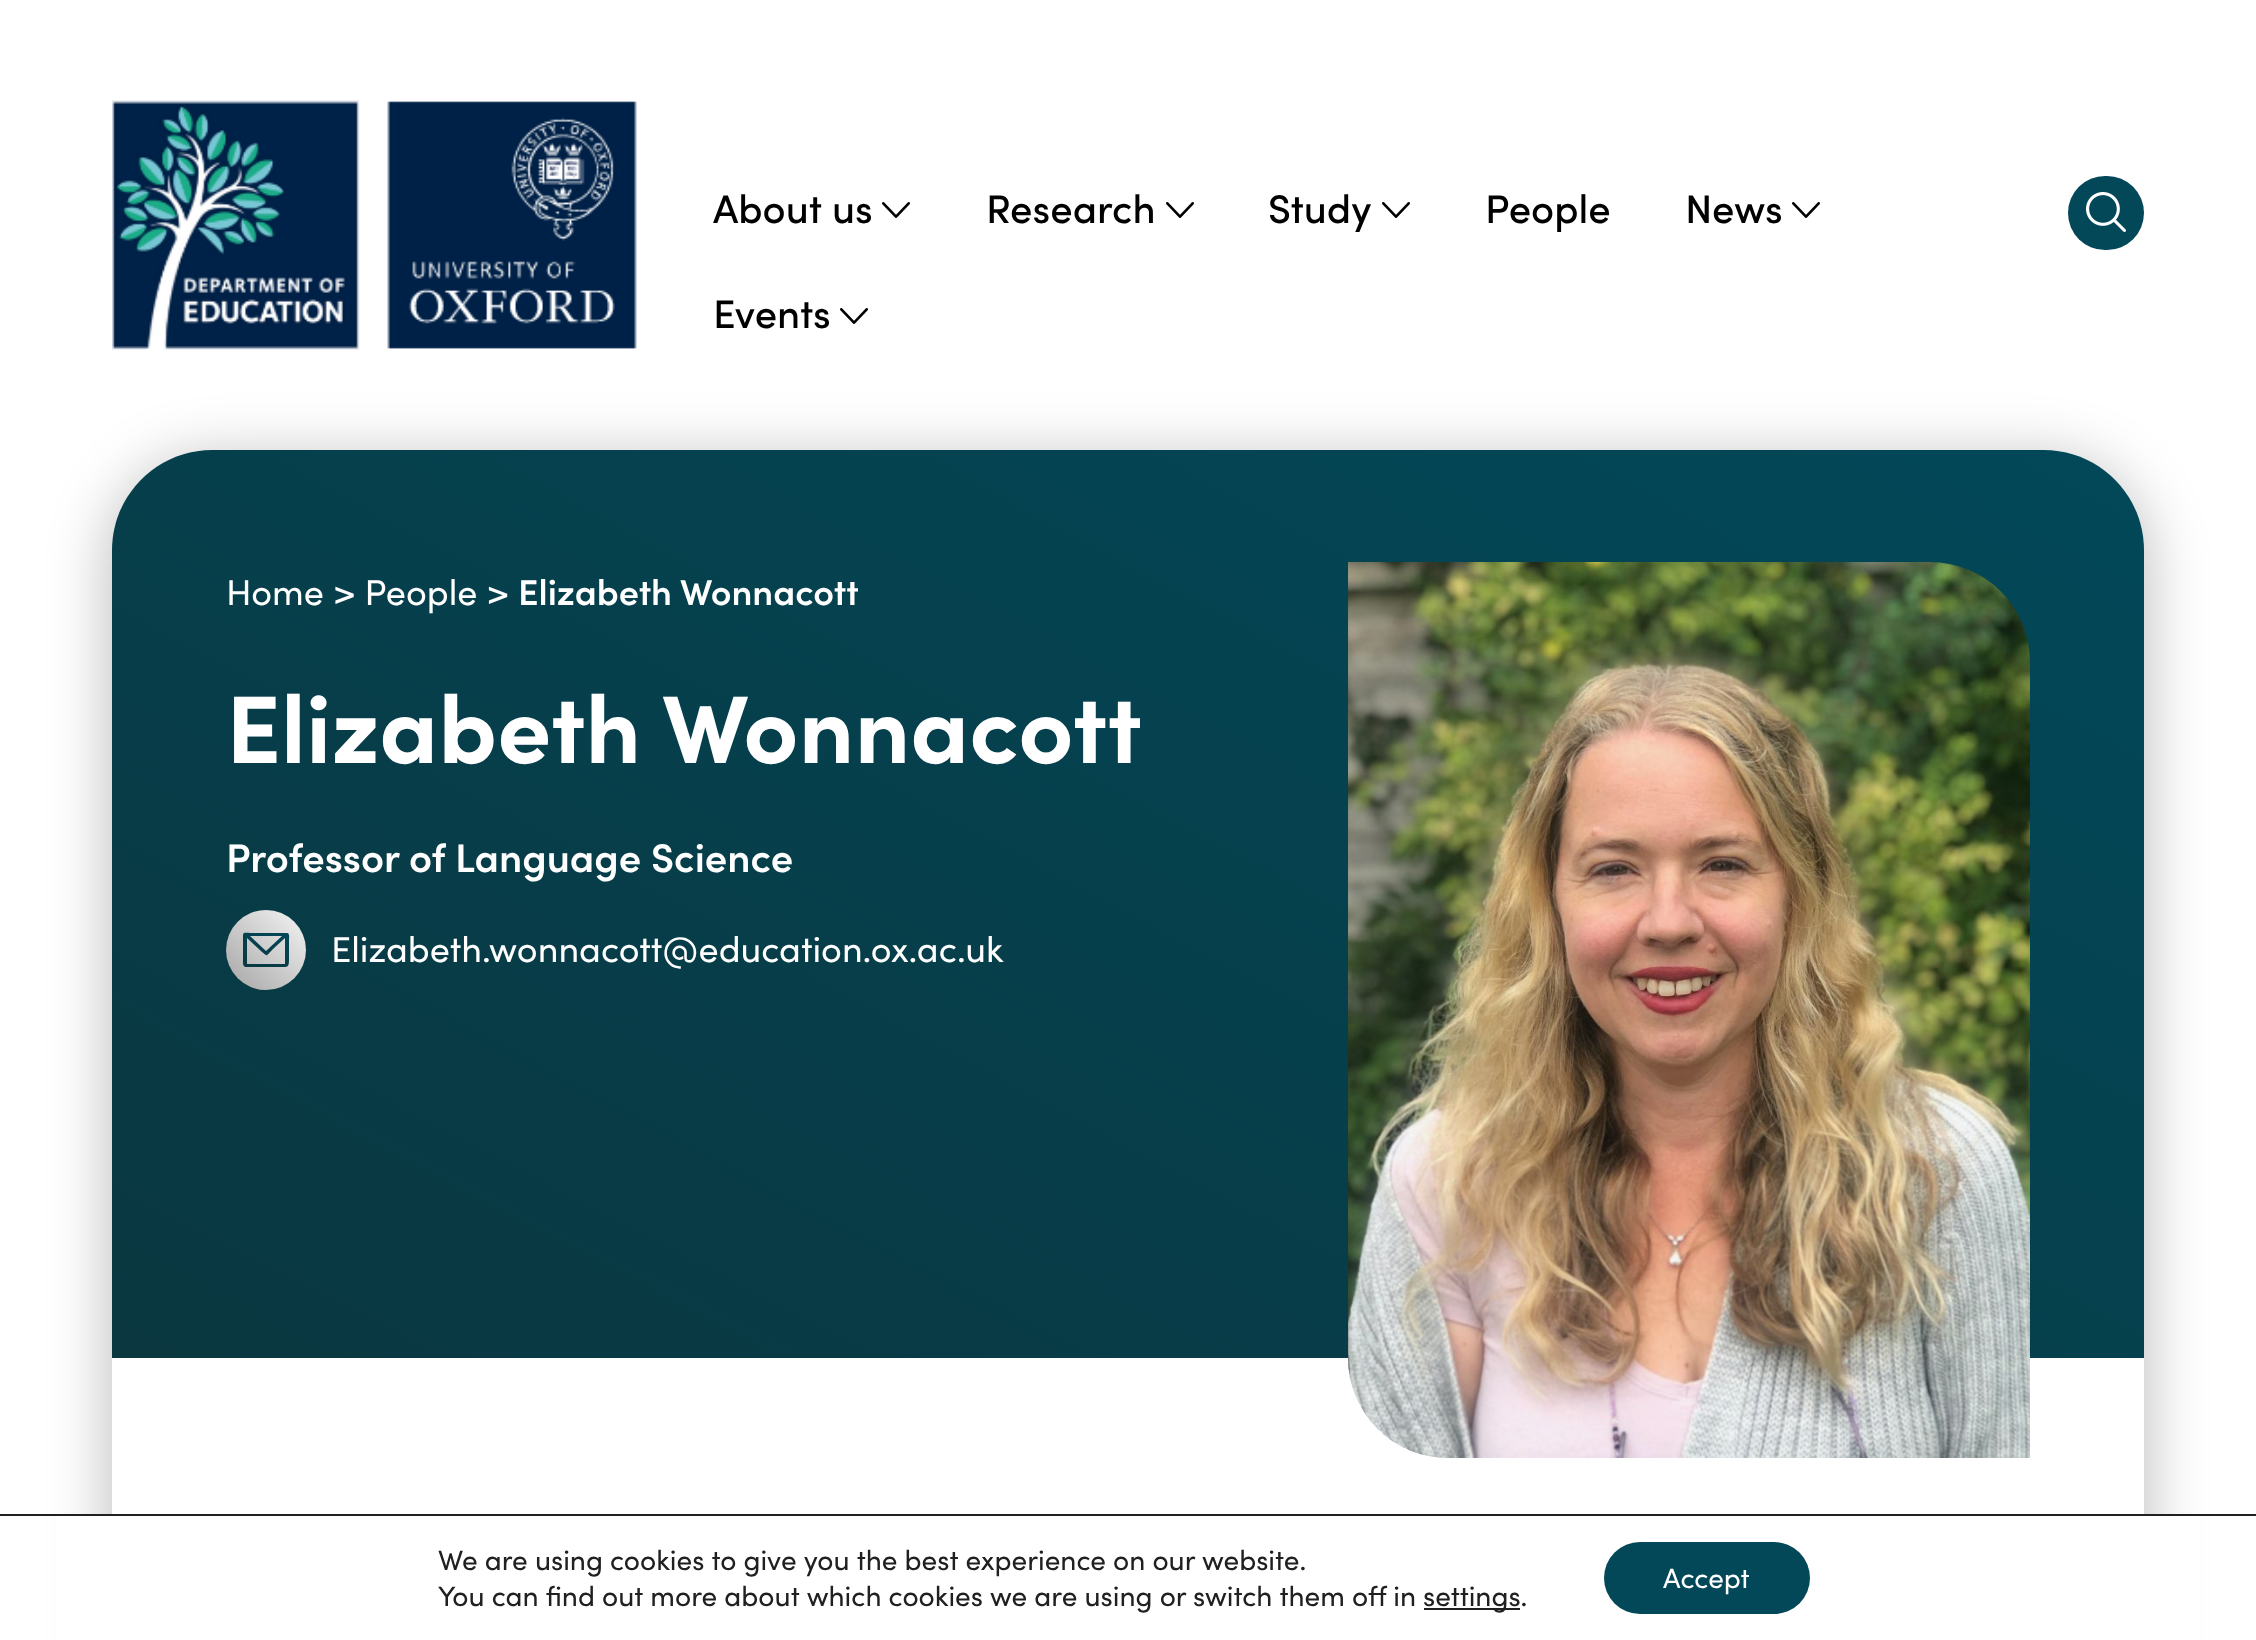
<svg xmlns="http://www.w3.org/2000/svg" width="2256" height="1640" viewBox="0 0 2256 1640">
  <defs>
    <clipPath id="clip1"><path d="M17 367H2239V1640H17ZM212 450H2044C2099 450 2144 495 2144 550V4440C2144 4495 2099 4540 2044 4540H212C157 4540 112 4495 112 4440V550C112 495 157 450 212 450Z" clip-rule="evenodd"/></clipPath>
    <linearGradient id="g1" gradientUnits="userSpaceOnUse" x1="1540" y1="129" x2="716" y2="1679"><stop offset="0.01" stop-color="#024859"/><stop offset="1" stop-color="#0a3740"/></linearGradient>
    <linearGradient id="g2" gradientUnits="userSpaceOnUse" x1="306" y1="910" x2="226" y2="990"><stop offset="0" stop-color="#f5f5f5"/><stop offset="1" stop-color="#a5a5a5"/></linearGradient>
    <linearGradient id="g3" gradientUnits="userSpaceOnUse" x1="289" y1="933" x2="270" y2="978"><stop offset="0" stop-color="#024859"/><stop offset="1" stop-color="#0a3740"/></linearGradient>
  </defs>
  <rect width="100%" height="100%" fill="#fff"/>
  <image x="112" y="100" width="525" height="250" href="img/1.png"/>
  <image x="882" y="202" width="28" height="16" href="img/2.png"/>
  <image x="1166" y="202" width="28" height="16" href="img/2.png"/>
  <image x="1382" y="202" width="28" height="16" href="img/2.png"/>
  <image x="1792" y="202" width="28" height="16" href="img/2.png"/>
  <image x="840" y="308" width="28" height="16" href="img/2.png"/>
  <rect x="2068" y="176" width="76" height="74" rx="37" fill="#024859"/>
  <image x="2086" y="192" width="40" height="40" href="img/3.png"/>
  <g clip-path="url(#clip1)">
    <rect x="108" y="458" width="2040" height="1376" rx="104" fill="#00000040" filter="blur(30px)"/>
  </g>
  <path d="M212 450H2044C2099 450 2144 495 2144 550V1358H112V550C112 495 157 450 212 450Z" fill="url(#g1)"/>
  <circle cx="266" cy="950" r="40" fill="url(#g2)"/>
  <path d="M287 933H252C243 933 243 931 243 939V959C243 962 242 967 247 967H279C288 967 289 968 289 959V939C289 939 290 933 287 933ZM282 936L266 951L250 936ZM285 964H247V938L262 952C268 957 266 956 273 949L285 938Z" fill="url(#g3)"/>
  <image x="1348" y="562" width="682" height="896" href="img/4.png"/>
  <path d="M56 1516h2144v124H56z" fill="#fff"/>
  <path d="M0 1514h2256v2H0z" fill="#202020"/>
  <path d="M1424 1608h96v2H1424z" fill="#202020"/>
  <rect x="1604" y="1542" width="206" height="72" rx="36" fill="#024859"/>
  <g font-family="Sofia" font-size="40" font-weight="500" fill="#000">
    <text x="713" y="223">About us</text>
    <text x="986" y="223">Research</text>
    <text x="1268" y="223">Study</text>
    <text x="1485" y="223">People</text>
    <text x="1685" y="223">News</text>
    <text x="713" y="328">Events</text>
  </g>
  <text x="226" y="605" font-family="Sofia" font-size="36" fill="#fff">Home &gt; People &gt;</text>
  <text x="518" y="605" font-family="Sofia" font-size="36" font-weight="600" fill="#fff">Elizabeth Wonnacott</text>
  <text x="226" y="763" font-family="Sofia" font-size="96" font-weight="bold" fill="#fff">Elizabeth Wonnacott</text>
  <text x="226" y="872" font-family="Sofia" font-size="40" font-weight="600" fill="#fff">Professor of Language Science</text>
  <text x="331" y="962" font-family="Sofia" font-size="36" fill="#fff">Elizabeth.wonnacott@education.ox.ac.uk</text>
  <g font-family="Sofia" font-size="28" fill="#202020">
    <text x="438" y="1570">We are using cookies to give you the best experience on our website.</text>
    <text x="438" y="1606">You can find out more about which cookies we are using or switch them off in</text>
    <text x="1423" y="1606">settings.</text>
  </g>
  <text x="1663" y="1588" font-family="Sofia" font-size="28" fill="#fff">Accept</text>
</svg>
